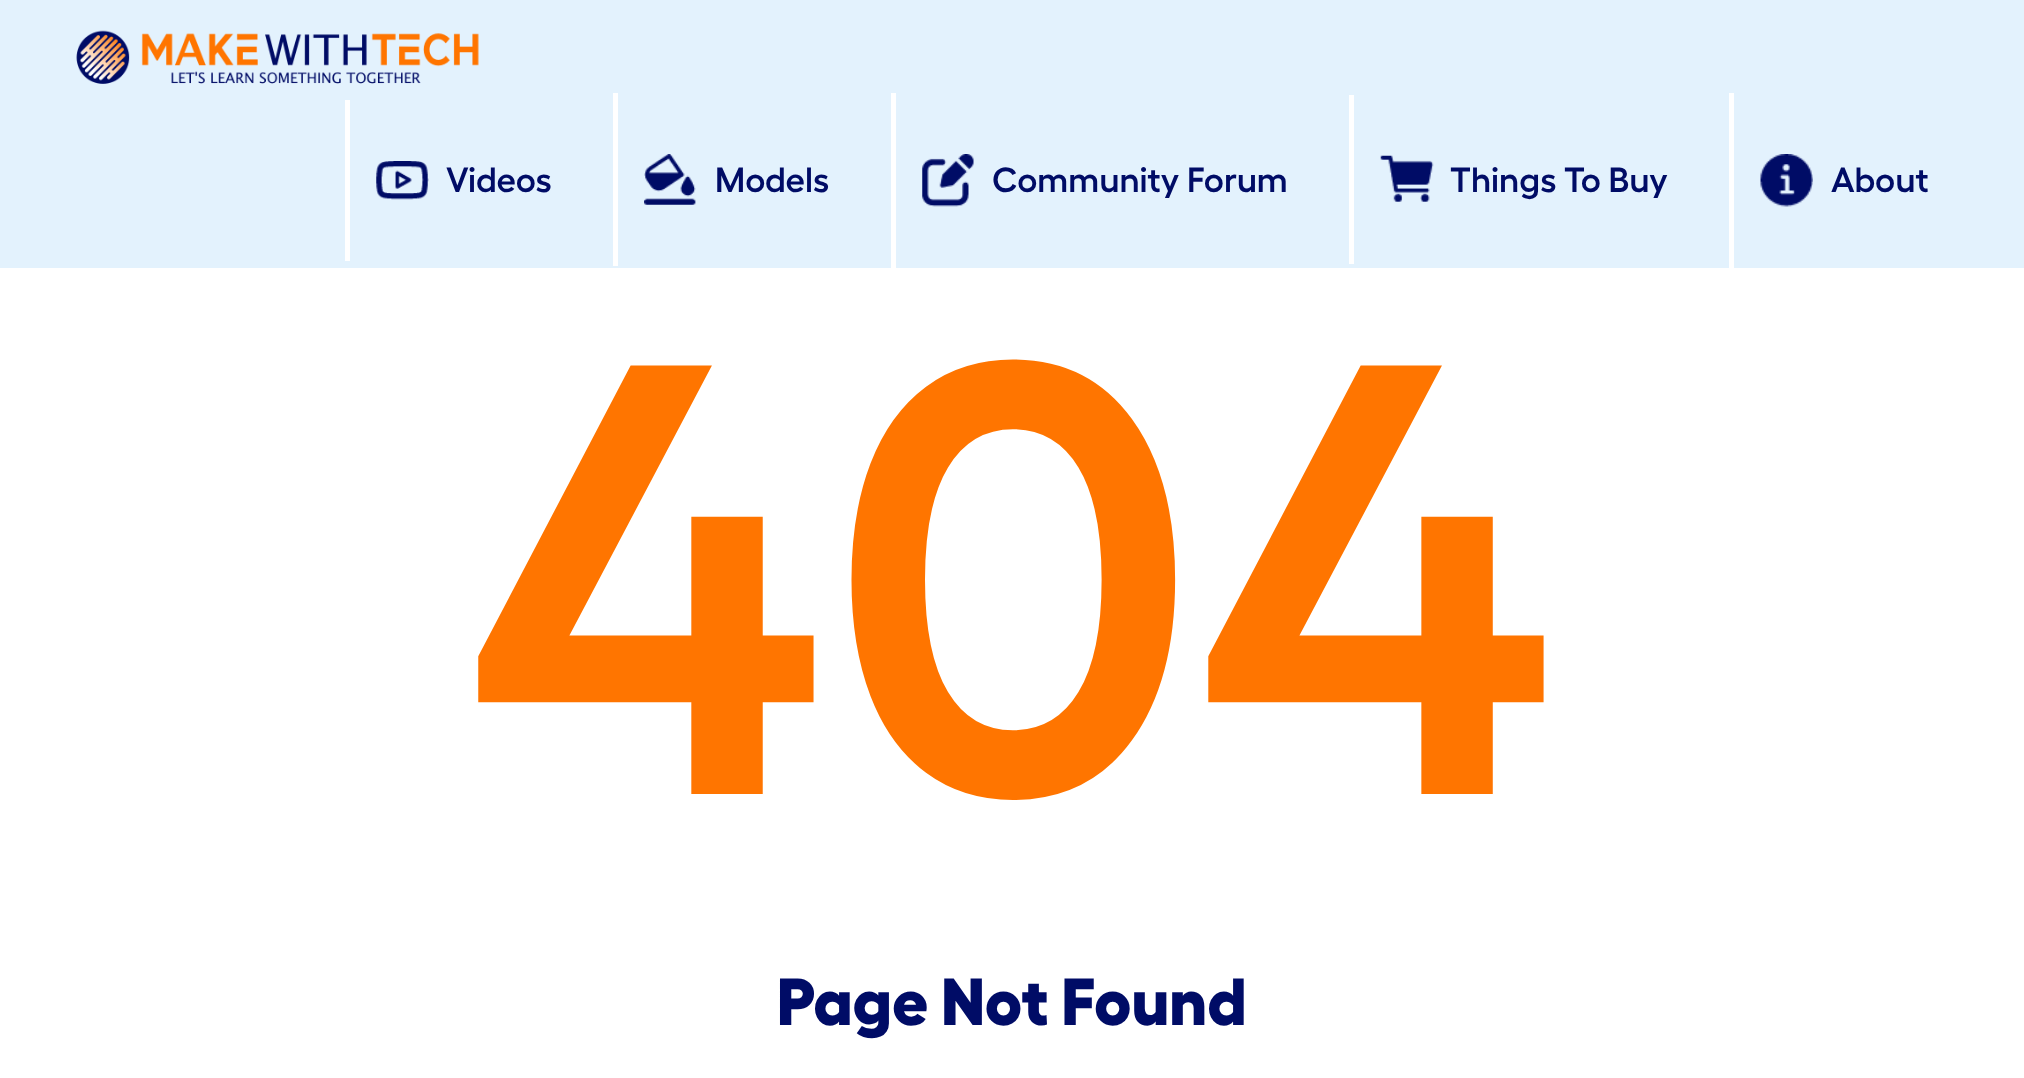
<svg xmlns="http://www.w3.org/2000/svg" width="2024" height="1078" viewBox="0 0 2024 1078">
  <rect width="100%" height="100%" fill="#fff"/>
  <path d="M0 0h2024v268H0z" fill="#e3f2fd"/>
  <image x="76" y="30" width="403" height="54" href="img/1.png"/>
  <path d="M345 100h5v161H345z" fill="#fff"/>
  <image x="376" y="161" width="53" height="39" href="img/2.png"/>
  <path d="M613 93h5v173H613z" fill="#fff"/>
  <image x="644" y="154" width="52" height="51" href="img/3.png"/>
  <path d="M891 93h5v175H891z" fill="#fff"/>
  <image x="922" y="154" width="52" height="53" href="img/4.png"/>
  <path d="M1349 95h5v169H1349z" fill="#fff"/>
  <image x="1380" y="155" width="54" height="47" href="img/5.png"/>
  <path d="M1729 93h5v175H1729z" fill="#fff"/>
  <image x="1760" y="154" width="53" height="53" href="img/6.png"/>
  <g font-family="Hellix" font-size="35" font-weight="600" fill="#000c66">
    <text x="446" y="192">Videos</text>
    <text x="715" y="192">Models</text>
    <text x="992" y="192">Community Forum</text>
    <text x="1450" y="192">Things To Buy</text>
    <text x="1831" y="192">About</text>
  </g>
  <text x="466" y="794" font-family="Hellix" font-size="612" font-weight="600" fill="#ff7500">404</text>
  <text x="777" y="1025" font-family="Hellix" font-size="66.5" font-weight="800" fill="#000c66">Page Not Found</text>
</svg>
